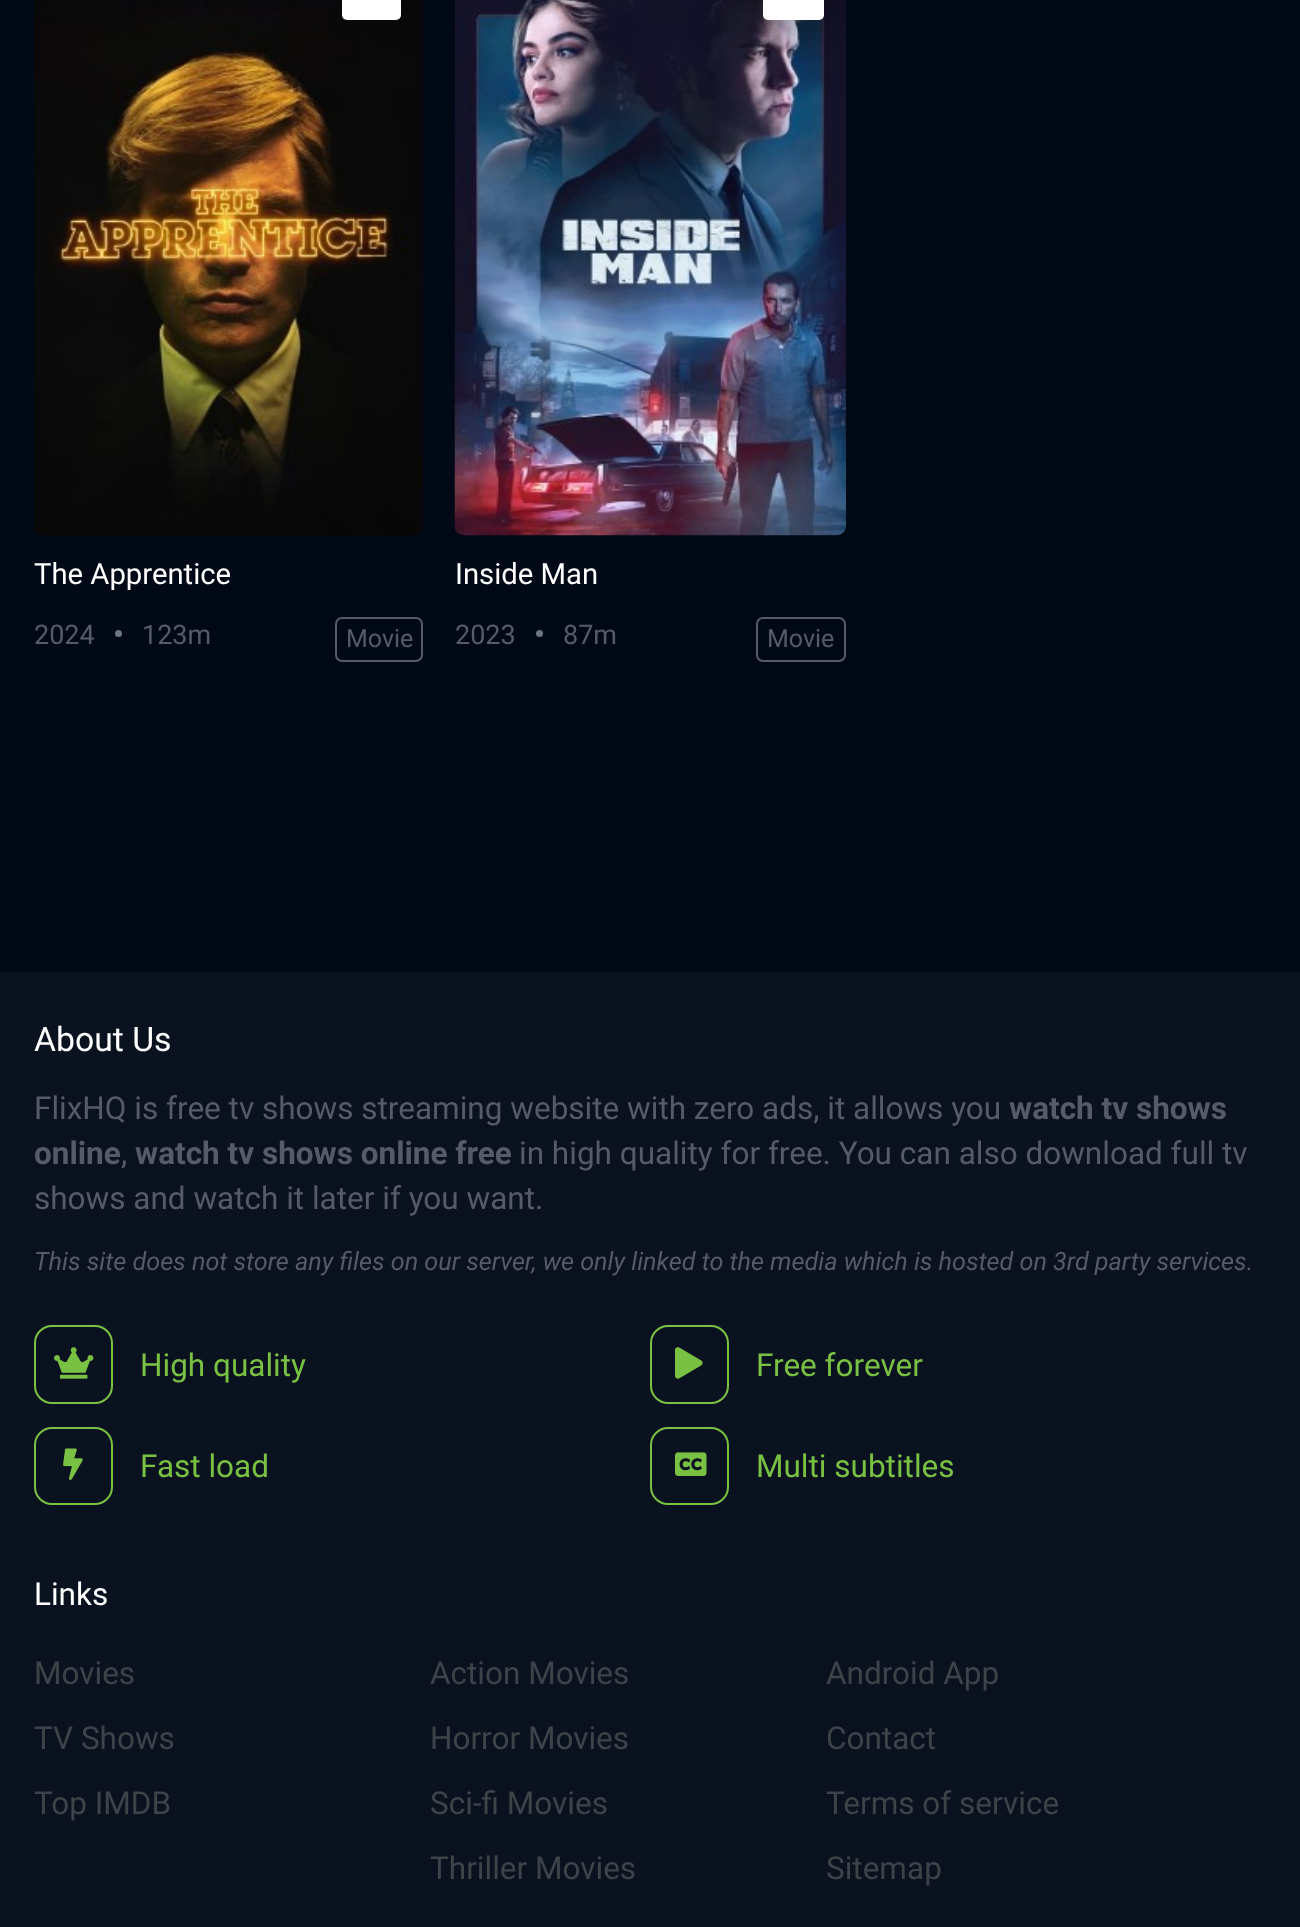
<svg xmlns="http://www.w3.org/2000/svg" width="1300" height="1927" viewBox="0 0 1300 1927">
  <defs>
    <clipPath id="clip1"><rect x="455" y="-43" width="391" height="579" rx="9"/></clipPath>
  </defs>
  <rect width="100%" height="100%" fill="#020916"/>
  <image x="34" y="0" width="389" height="536" href="img/1.png"/>
  <rect x="342" y="-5" width="59" height="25" rx="5" fill="#fff"/>
  <circle cx="118.5" cy="633.5" r="3.5" fill="#6d7583"/>
  <rect x="336" y="618" width="86" height="43" rx="6" fill="none" stroke="#565c67" stroke-width="2"/>
  <image x="454" y="0" width="392" height="536" href="img/2.png"/>
  <g clip-path="url(#clip1)">
    <rect x="763" y="-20" width="61" height="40" rx="5" fill="#000" filter="blur(34px)"/>
  </g>
  <rect x="763" y="-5" width="61" height="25" rx="5" fill="#fff"/>
  <circle cx="539.5" cy="633.5" r="3.5" fill="#6d7583"/>
  <rect x="757" y="618" width="88" height="43" rx="6" fill="none" stroke="#565c67" stroke-width="2"/>
  <path d="M0 972h1300v955H0z" fill="#0a1220"/>
  <rect x="35" y="1326" width="77" height="77" rx="17" fill="none" stroke="#79c142" stroke-width="2"/>
  <image x="54" y="1347" width="40" height="32" href="img/3.png"/>
  <rect x="651" y="1326" width="77" height="77" rx="17" fill="none" stroke="#79c142" stroke-width="2"/>
  <image x="675" y="1347" width="28" height="32" href="img/4.png"/>
  <rect x="35" y="1428" width="77" height="76" rx="17" fill="none" stroke="#79c142" stroke-width="2"/>
  <image x="63" y="1448" width="20" height="32" href="img/5.png"/>
  <rect x="651" y="1428" width="77" height="76" rx="17" fill="none" stroke="#79c142" stroke-width="2"/>
  <image x="675" y="1452" width="32" height="24" href="img/6.png"/>
  <text x="34" y="584" font-family="Roboto" font-size="29.25" fill="#fff">The Apprentice</text>
  <g font-family="Roboto" font-size="27" fill="#565c67">
    <text x="34" y="644">2024</text>
    <text x="142" y="644">123m</text>
  </g>
  <text x="346" y="647" font-family="Roboto" font-size="25" fill="#565c67">Movie</text>
  <text x="455" y="584" font-family="Roboto" font-size="29.25" fill="#fff">Inside Man</text>
  <g font-family="Roboto" font-size="27" fill="#565c67">
    <text x="455" y="644">2023</text>
    <text x="563" y="644">87m</text>
  </g>
  <text x="767" y="647" font-family="Roboto" font-size="25" fill="#565c67">Movie</text>
  <text x="34" y="1051" font-family="Roboto" font-size="33.75" fill="#fff">About Us</text>
  <text x="34" y="1119" font-family="Roboto" font-size="31.5" fill="#565c67">FlixHQ is free tv shows streaming website with zero ads, it allows you</text>
  <g font-family="Roboto" font-size="31.5" font-weight="bold" fill="#565c67">
    <text x="1009" y="1119">watch tv shows</text>
    <text x="34" y="1164">online</text>
  </g>
  <text x="121" y="1164" font-family="Roboto" font-size="31.5" fill="#565c67">,</text>
  <text x="135" y="1164" font-family="Roboto" font-size="31.5" font-weight="bold" fill="#565c67">watch tv shows online free</text>
  <g font-family="Roboto" font-size="31.5" fill="#565c67">
    <text x="519" y="1164">in high quality for free. You can also download full tv</text>
    <text x="34" y="1209">shows and watch it later if you want.</text>
  </g>
  <text x="34" y="1270" font-family="Roboto" font-size="25.2" font-style="italic" fill="#565c67">This site does not store any files on our server, we only linked to the media which is hosted on 3rd party services.</text>
  <g font-family="Roboto" font-size="31.5" fill="#79c142">
    <text x="140" y="1376">High quality</text>
    <text x="756" y="1376">Free forever</text>
    <text x="140" y="1477">Fast load</text>
    <text x="756" y="1477">Multi subtitles</text>
  </g>
  <text x="34" y="1605" font-family="Roboto" font-size="31.5" fill="#fff">Links</text>
  <g font-family="Roboto" font-size="31.5" fill="#3d4349">
    <text x="34" y="1684">Movies</text>
    <text x="34" y="1749">TV Shows</text>
    <text x="34" y="1814">Top IMDB</text>
    <text x="430" y="1684">Action Movies</text>
    <text x="430" y="1749">Horror Movies</text>
    <text x="430" y="1814">Sci-fi Movies</text>
    <text x="430" y="1879">Thriller Movies</text>
    <text x="826" y="1684">Android App</text>
    <text x="826" y="1749">Contact</text>
    <text x="826" y="1814">Terms of service</text>
    <text x="826" y="1879">Sitemap</text>
  </g>
</svg>
